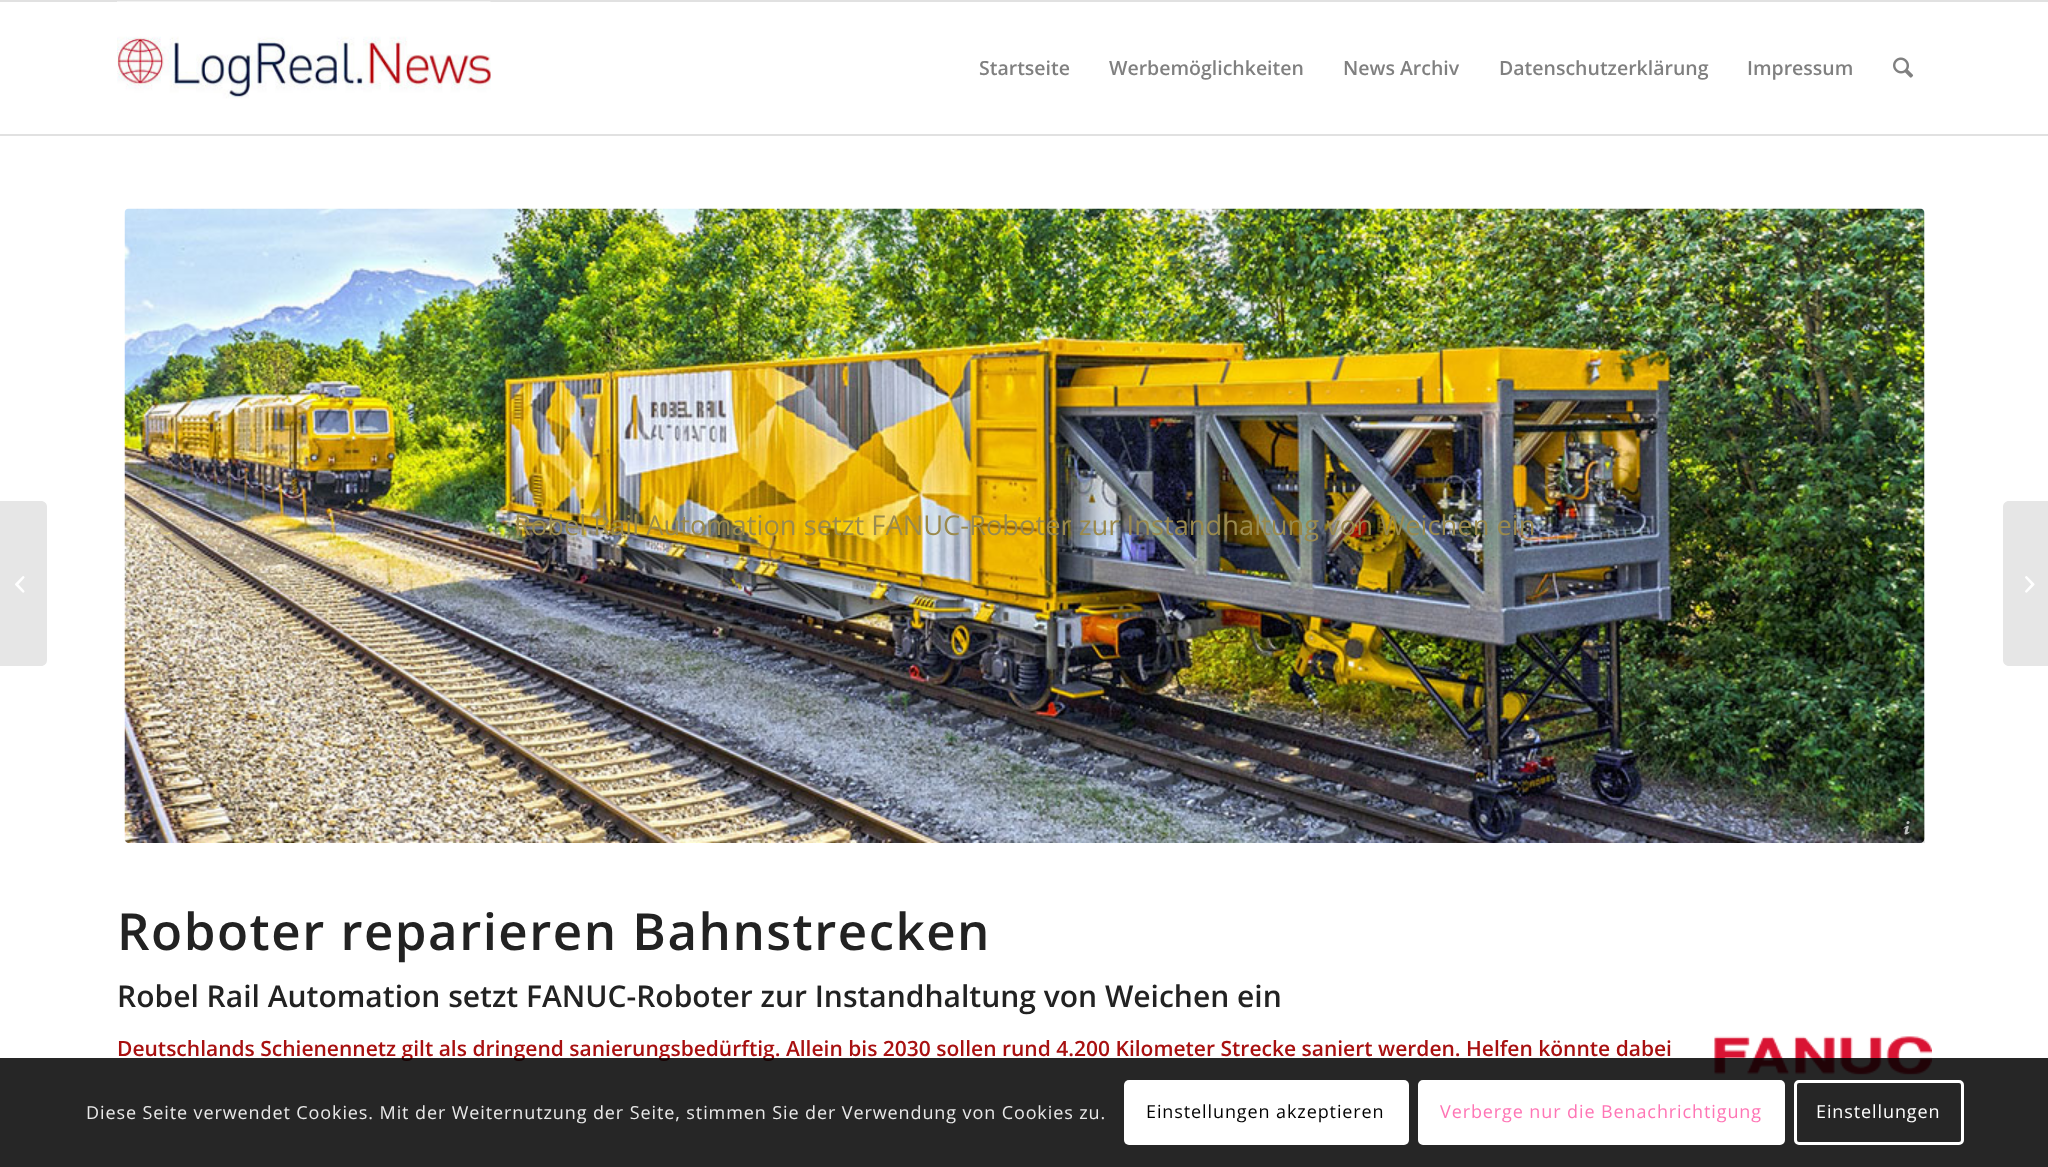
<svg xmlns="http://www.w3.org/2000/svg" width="2048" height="1167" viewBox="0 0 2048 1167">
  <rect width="100%" height="100%" fill="#fff"/>
  <path d="M0 0h2048v2H0z" fill="#e1e1e1"/>
  <path d="M0 134h2048v2H0z" fill="#e1e1e1"/>
  <image x="117" y="1" width="374" height="98" href="img/1.png"/>
  <image x="1893" y="57" width="21" height="21" href="img/2.png"/>
  <path d="M0 501H41C44.5 501 47 503.5 47 507V660C47 663.5 44.5 666 41 666H0Z" fill="#e6e6e6"/>
  <image x="15" y="576" width="10" height="17" href="img/3.png"/>
  <image x="124" y="208" width="1801" height="635" href="img/4.png"/>
  <path d="M1892 810h33v33H1892z" fill="#0000001a"/>
  <image x="1903" y="821" width="7" height="14" href="img/5.png"/>
  <image x="1714" y="1036" width="218" height="39" href="img/6.png"/>
  <path d="M2009 501H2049V666H2009C2005.5 666 2003 663.5 2003 660V507C2003 503.5 2005.5 501 2009 501Z" fill="#e6e6e6"/>
  <image x="2025" y="576" width="10" height="17" href="img/7.png"/>
  <g font-family="Open Sans" font-size="19.5" font-weight="600" fill="#808080">
    <text x="979" y="75">Startseite</text>
    <text x="1109" y="75">Werbemöglichkeiten</text>
    <text x="1343" y="75">News Archiv</text>
    <text x="1499" y="75">Datenschutzerklärung</text>
    <text x="1747" y="75">Impressum</text>
  </g>
  <text x="514" y="535" font-family="Open Sans" font-size="27.3" fill="#9a8a4d">Robel Rail Automation setzt FANUC-Roboter zur Instandhaltung von Weichen ein</text>
  <text x="117" y="950" font-family="Open Sans" font-size="51" font-weight="600" letter-spacing="1.5" fill="#222">Roboter reparieren Bahnstrecken</text>
  <text x="117" y="1007" font-family="Open Sans" font-size="30" font-weight="600" fill="#222">Robel Rail Automation setzt FANUC-Roboter zur Instandhaltung von Weichen ein</text>
  <text x="117" y="1056" font-family="Open Sans" font-size="21" font-weight="600" fill="#a81010">Deutschlands Schienennetz gilt als dringend sanierungsbedürftig. Allein bis 2030 sollen rund 4.200 Kilometer Strecke saniert werden. Helfen könnte dabei</text>
  <path d="M0 1058h2048v109H0z" fill="#000000d9"/>
  <text x="86" y="1119" font-family="Open Sans" font-size="18" letter-spacing="0.9" fill="#e9e9e9">Diese Seite verwendet Cookies. Mit der Weiternutzung der Seite, stimmen Sie der Verwendung von Cookies zu.</text>
  <rect x="1124" y="1080" width="285" height="65" rx="5" fill="#fff"/>
  <text x="1146" y="1118" font-family="Open Sans" font-size="18" letter-spacing="0.9" fill="#000">Einstellungen akzeptieren</text>
  <rect x="1419.5" y="1081.5" width="364" height="62" rx="3.5" fill="#fff" stroke="#fff" stroke-width="3"/>
  <text x="1440" y="1118" font-family="Open Sans" font-size="18" letter-spacing="0.9" fill="#ff75b5">Verberge nur die Benachrichtigung</text>
  <rect x="1795.5" y="1081.5" width="167" height="62" rx="3.5" fill="none" stroke="#fff" stroke-width="3"/>
  <text x="1816" y="1118" font-family="Open Sans" font-size="18" letter-spacing="0.9" fill="#fff">Einstellungen</text>
</svg>
